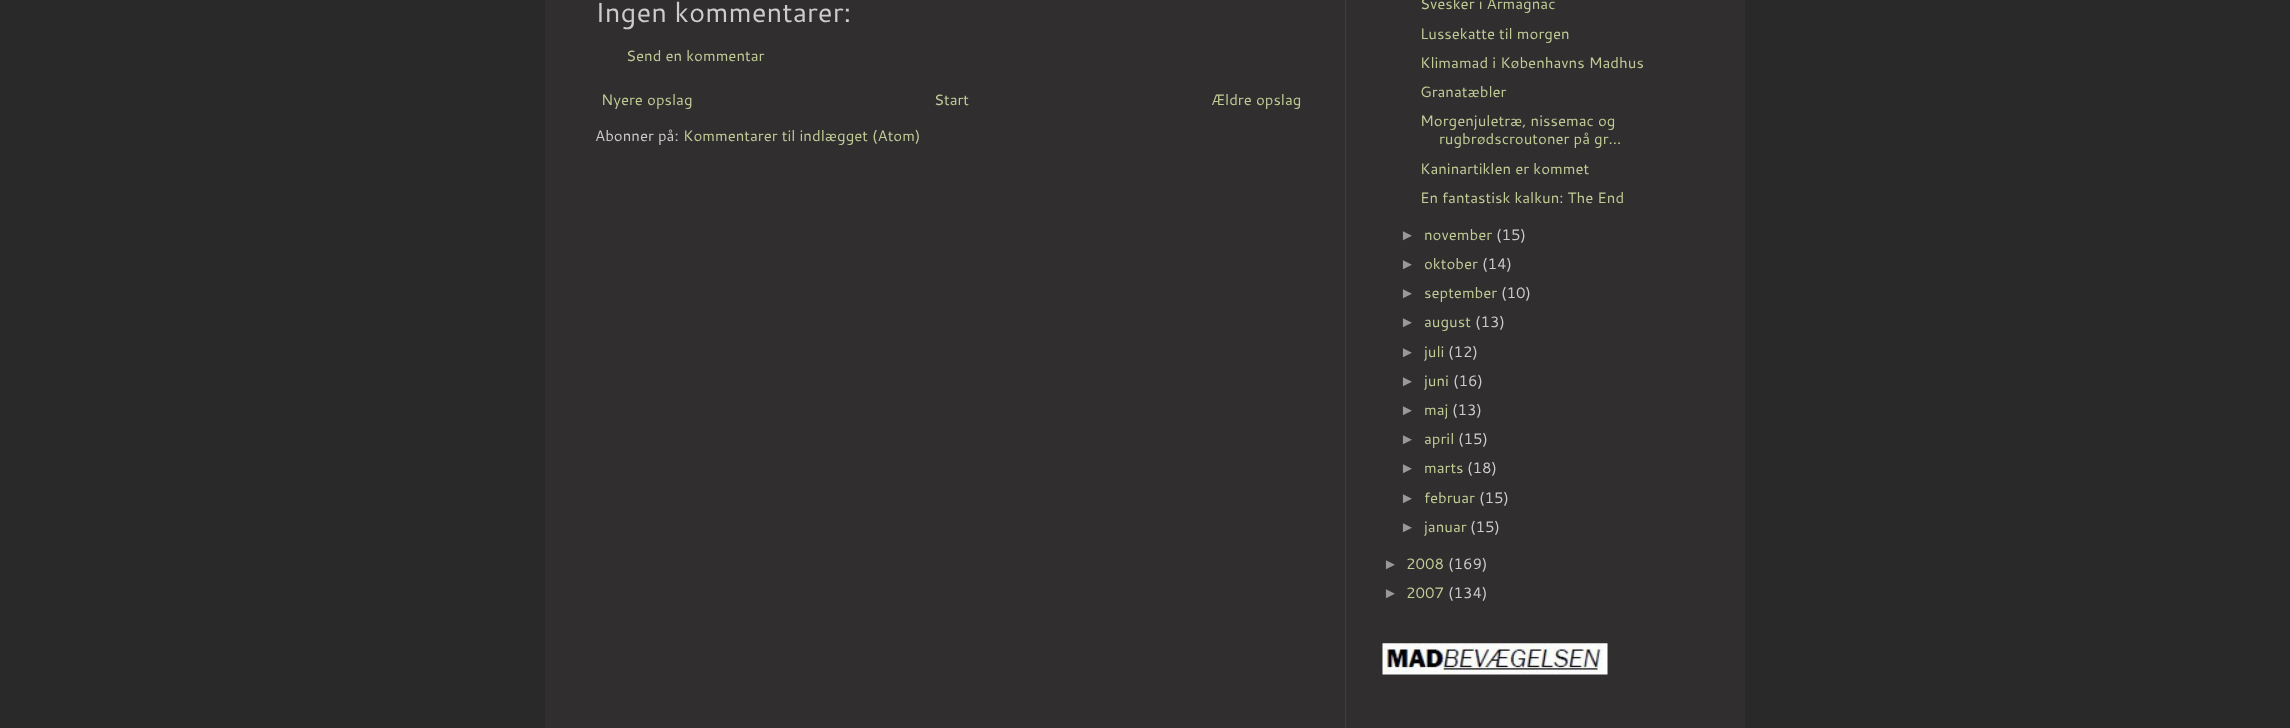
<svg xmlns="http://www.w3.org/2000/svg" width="2290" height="728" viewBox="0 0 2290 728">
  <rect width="100%" height="100%" fill="#292929"/>
  <path d="M545 0h1200v728H545z" fill="#302e2e"/>
  <image x="1382" y="643" width="226" height="32" href="img/1.png"/>
  <path d="M1345 0h1v728H1345z" fill="#404040"/>
  <text x="595" y="22" font-family="Cantarell" font-size="27.5" fill="#ccc">Ingen kommentarer:</text>
  <g font-family="Cantarell" font-size="15" fill="#c0cc96">
    <text x="626" y="61">Send en kommentar</text>
    <text x="601" y="105">Nyere opslag</text>
    <text x="934" y="105">Start</text>
    <text x="1211" y="105">Ældre opslag</text>
  </g>
  <text x="595" y="141" font-family="Cantarell" font-size="15" fill="#ccc">Abonner på:</text>
  <g font-family="Cantarell" font-size="15" fill="#c0cc96">
    <text x="683" y="141">Kommentarer til indlægget (Atom)</text>
    <text x="1420" y="9">Svesker i Armagnac</text>
    <text x="1420" y="39">Lussekatte til morgen</text>
    <text x="1420" y="68">Klimamad i Københavns Madhus</text>
    <text x="1420" y="97">Granatæbler</text>
    <text x="1420" y="126">Morgenjuletræ, nissemac og</text>
    <text x="1439" y="144">rugbrødscroutoner på gr...</text>
    <text x="1420" y="174">Kaninartiklen er kommet</text>
    <text x="1420" y="203">En fantastisk kalkun: The End</text>
  </g>
  <text x="1400" y="240" font-family="Liberation Sans" font-size="15" fill="#999">►</text>
  <text x="1424" y="240" font-family="Cantarell" font-size="15" fill="#c0cc96">november</text>
  <text x="1496" y="240" font-family="Cantarell" font-size="15" fill="#ccc">(15)</text>
  <text x="1400" y="269" font-family="Liberation Sans" font-size="15" fill="#999">►</text>
  <text x="1424" y="269" font-family="Cantarell" font-size="15" fill="#c0cc96">oktober</text>
  <text x="1482" y="269" font-family="Cantarell" font-size="15" fill="#ccc">(14)</text>
  <text x="1400" y="298" font-family="Liberation Sans" font-size="15" fill="#999">►</text>
  <text x="1424" y="298" font-family="Cantarell" font-size="15" fill="#c0cc96">september</text>
  <text x="1501" y="298" font-family="Cantarell" font-size="15" fill="#ccc">(10)</text>
  <text x="1400" y="327" font-family="Liberation Sans" font-size="15" fill="#999">►</text>
  <text x="1424" y="327" font-family="Cantarell" font-size="15" fill="#c0cc96">august</text>
  <text x="1475" y="327" font-family="Cantarell" font-size="15" fill="#ccc">(13)</text>
  <text x="1400" y="357" font-family="Liberation Sans" font-size="15" fill="#999">►</text>
  <text x="1424" y="357" font-family="Cantarell" font-size="15" fill="#c0cc96">juli</text>
  <text x="1448" y="357" font-family="Cantarell" font-size="15" fill="#ccc">(12)</text>
  <text x="1400" y="386" font-family="Liberation Sans" font-size="15" fill="#999">►</text>
  <text x="1424" y="386" font-family="Cantarell" font-size="15" fill="#c0cc96">juni</text>
  <text x="1453" y="386" font-family="Cantarell" font-size="15" fill="#ccc">(16)</text>
  <text x="1400" y="415" font-family="Liberation Sans" font-size="15" fill="#999">►</text>
  <text x="1424" y="415" font-family="Cantarell" font-size="15" fill="#c0cc96">maj</text>
  <text x="1452" y="415" font-family="Cantarell" font-size="15" fill="#ccc">(13)</text>
  <text x="1400" y="444" font-family="Liberation Sans" font-size="15" fill="#999">►</text>
  <text x="1424" y="444" font-family="Cantarell" font-size="15" fill="#c0cc96">april</text>
  <text x="1458" y="444" font-family="Cantarell" font-size="15" fill="#ccc">(15)</text>
  <text x="1400" y="473" font-family="Liberation Sans" font-size="15" fill="#999">►</text>
  <text x="1424" y="473" font-family="Cantarell" font-size="15" fill="#c0cc96">marts</text>
  <text x="1467" y="473" font-family="Cantarell" font-size="15" fill="#ccc">(18)</text>
  <text x="1400" y="503" font-family="Liberation Sans" font-size="15" fill="#999">►</text>
  <text x="1424" y="503" font-family="Cantarell" font-size="15" fill="#c0cc96">februar</text>
  <text x="1479" y="503" font-family="Cantarell" font-size="15" fill="#ccc">(15)</text>
  <text x="1400" y="532" font-family="Liberation Sans" font-size="15" fill="#999">►</text>
  <text x="1424" y="532" font-family="Cantarell" font-size="15" fill="#c0cc96">januar</text>
  <text x="1470" y="532" font-family="Cantarell" font-size="15" fill="#ccc">(15)</text>
  <text x="1383" y="569" font-family="Liberation Sans" font-size="15" fill="#999">►</text>
  <text x="1406" y="569" font-family="Cantarell" font-size="15" fill="#c0cc96">2008</text>
  <text x="1448" y="569" font-family="Cantarell" font-size="15" fill="#ccc">(169)</text>
  <text x="1383" y="598" font-family="Liberation Sans" font-size="15" fill="#999">►</text>
  <text x="1406" y="598" font-family="Cantarell" font-size="15" fill="#c0cc96">2007</text>
  <text x="1448" y="598" font-family="Cantarell" font-size="15" fill="#ccc">(134)</text>
</svg>
